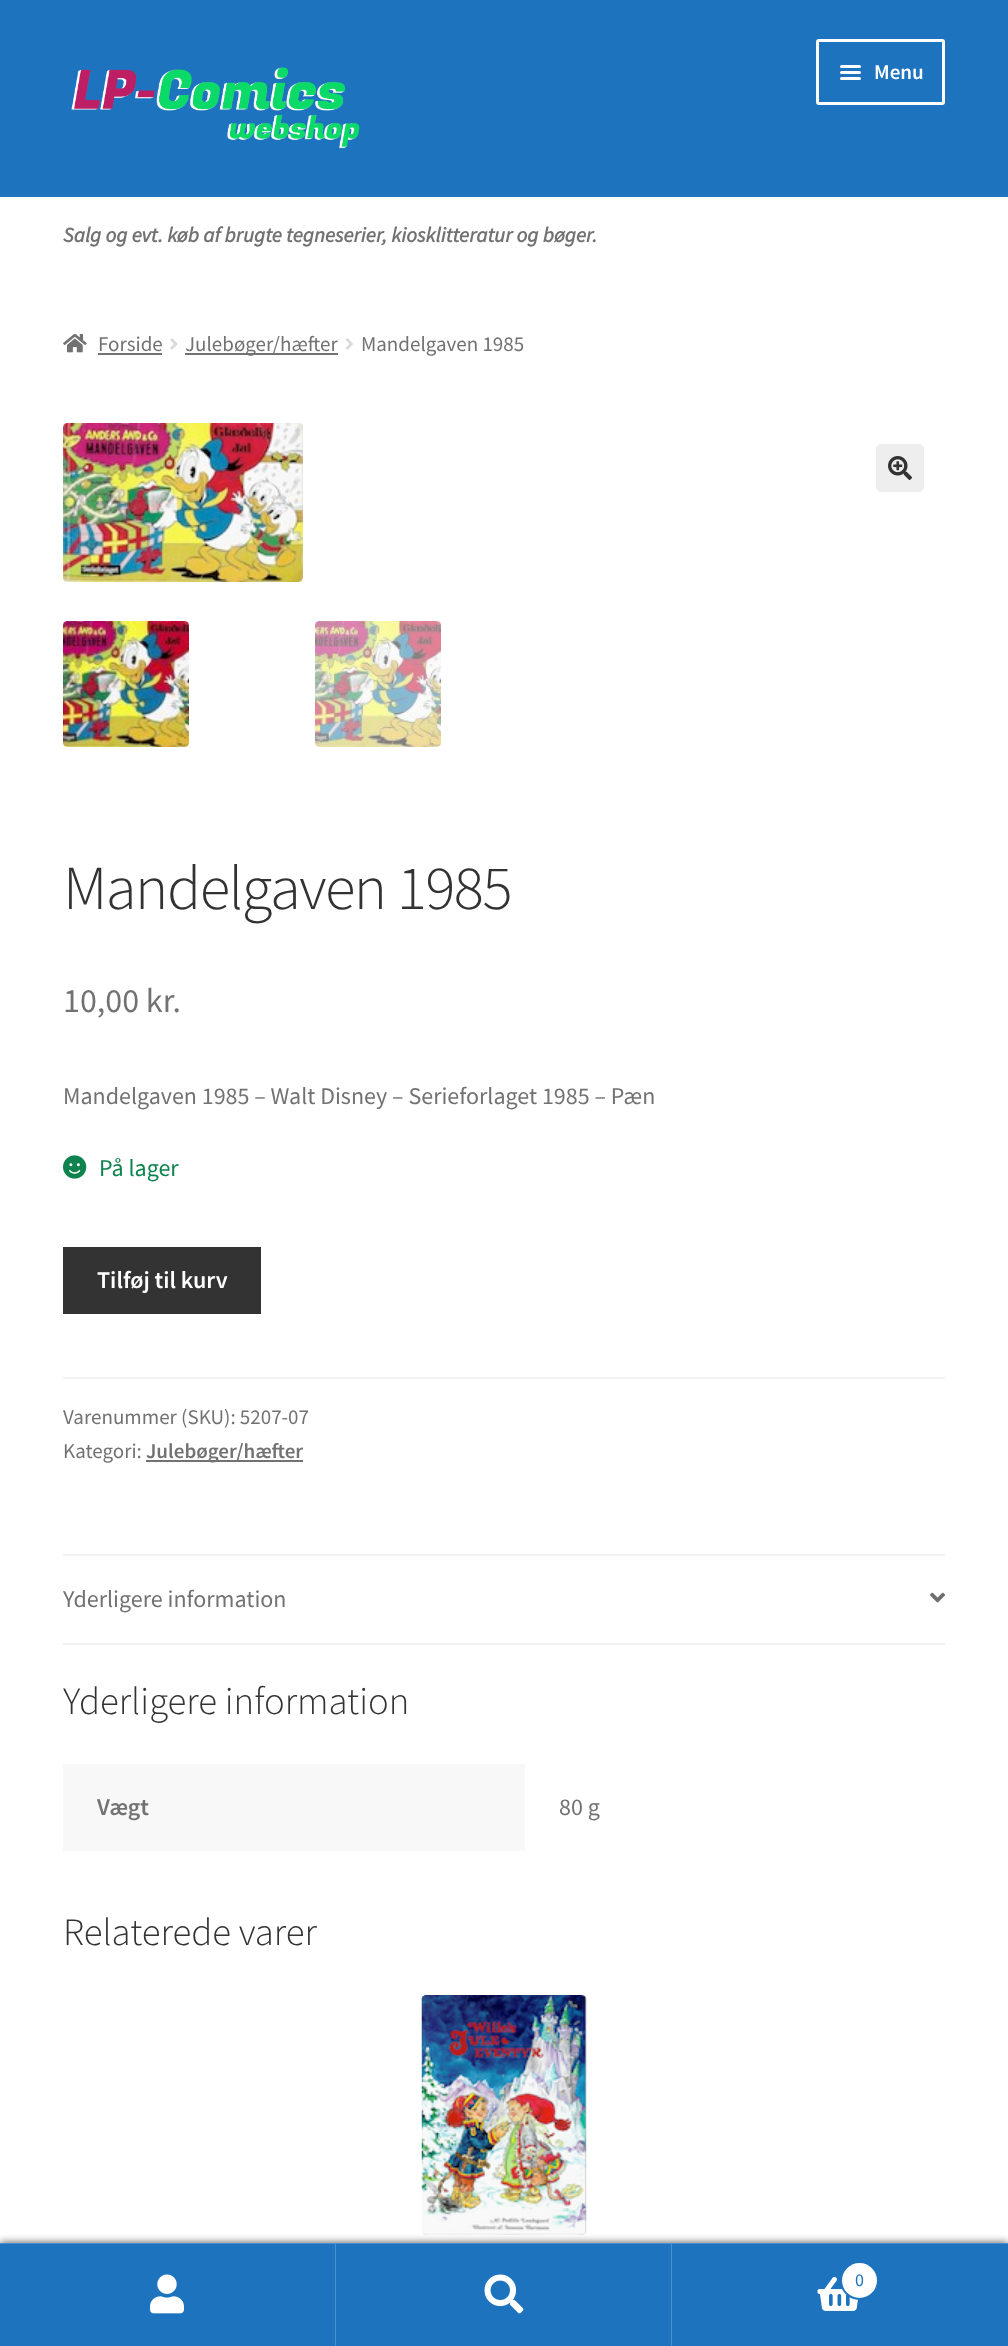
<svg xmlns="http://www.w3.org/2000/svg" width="1008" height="2346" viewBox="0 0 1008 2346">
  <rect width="100%" height="100%" fill="#fff"/>
  <path d="M0 0h1008v197H0z" fill="#1e73be"/>
  <image x="71" y="67" width="289" height="82" href="img/1.png"/>
  <rect x="817.5" y="40.5" width="126" height="63" rx="1.5" fill="none" stroke="#fff" stroke-width="3"/>
  <rect x="840" y="65" width="21" height="3" rx="1.5" fill="#fff"/>
  <rect x="840" y="71" width="21" height="3" rx="1.5" fill="#fff"/>
  <rect x="840" y="77" width="21" height="3" rx="1.5" fill="#fff"/>
  <image x="63" y="333" width="24" height="20" href="img/2.png"/>
  <path d="M98 353h64v2H98z" fill="#727272"/>
  <image x="170" y="338" width="8" height="12" href="img/3.png"/>
  <path d="M185 353h153v2H185z" fill="#727272"/>
  <image x="345" y="338" width="8" height="12" href="img/4.png"/>
  <image x="63" y="423" width="240" height="159" href="img/5.png"/>
  <rect x="876" y="444" width="48" height="48" rx="5" fill="#eee"/>
  <image x="888" y="456" width="24" height="24" href="img/6.png"/>
  <image x="63" y="621" width="126" height="126" href="img/7.png"/>
  <image x="315" y="621" width="126" height="126" href="img/8.png"/>
  <image x="63" y="1155" width="24" height="24" href="img/9.png"/>
  <path d="M63 1247h198v67H63z" fill="#333"/>
  <path d="M63 1377h882v2H63z" fill="#f2f2f2"/>
  <path d="M146 1460h157v2H146z" fill="#727272"/>
  <path d="M63 1554h882v2H63z" fill="#f2f2f2"/>
  <path d="M63 1643h882v2H63z" fill="#f2f2f2"/>
  <image x="930" y="1592" width="15" height="11" href="img/10.png"/>
  <path d="M63 1764h462v87H63z" fill="#f8f8f8"/>
  <image x="421" y="1995" width="166" height="240" href="img/11.png"/>
  <path d="M0 2243h1008v103H0z" fill="#000000b3" filter="blur(4.5px)"/>
  <path d="M0 2243h1008v1H0z" fill="#4b8fcb"/>
  <path d="M0 2244h335v102H0z" fill="#1e73be"/>
  <path d="M335 2244h1v102H335z" fill="#4b8fcb"/>
  <image x="150" y="2274" width="34" height="40" href="img/12.png"/>
  <path d="M336 2244h335v102H336z" fill="#1e73be"/>
  <path d="M671 2244h1v102H671z" fill="#4b8fcb"/>
  <image x="484" y="2274" width="40" height="40" href="img/13.png"/>
  <path d="M672 2244h336v102H672z" fill="#1e73be"/>
  <image x="817" y="2276" width="41" height="35" href="img/14.png"/>
  <circle cx="859.5" cy="2280.5" r="18.5" fill="#fff" stroke="#1e73be" stroke-width="2"/>
  <text x="874" y="79" font-family="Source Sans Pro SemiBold" font-size="21" font-weight="600" fill="#fff">Menu</text>
  <text x="63" y="242" font-family="Source Sans Pro" font-size="21" font-weight="bold" font-style="italic" fill="#727272">Salg og evt. køb af brugte tegneserier, kiosklitteratur og bøger.</text>
  <g font-family="Source Sans Pro" font-size="21" fill="#727272">
    <text x="98" y="351">Forside</text>
    <text x="185" y="351">Julebøger/hæfter</text>
    <text x="361" y="351">Mandelgaven 1985</text>
  </g>
  <text x="63" y="909" font-family="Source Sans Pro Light" font-size="62.75" font-weight="300" letter-spacing="-1.5" fill="#333">Mandelgaven 1985</text>
  <text x="63" y="1012" font-family="Source Sans Pro" font-size="34" fill="#727272">10,00 kr.</text>
  <text x="63" y="1104" font-family="Source Sans Pro" font-size="24" fill="#727272">Mandelgaven 1985 – Walt Disney – Serieforlaget 1985 – Pæn</text>
  <text x="99" y="1176" font-family="Source Sans Pro" font-size="24" fill="#0f834d">På lager</text>
  <text x="97" y="1288" font-family="Source Sans Pro SemiBold" font-size="24" font-weight="600" fill="#fff">Tilføj til kurv</text>
  <g font-family="Source Sans Pro" font-size="21" fill="#727272">
    <text x="63" y="1424">Varenummer (SKU): 5207-07</text>
    <text x="63" y="1458">Kategori:</text>
  </g>
  <text x="146" y="1458" font-family="Source Sans Pro SemiBold" font-size="21" font-weight="600" fill="#727272">Julebøger/hæfter</text>
  <text x="63" y="1607" font-family="Source Sans Pro" font-size="24" fill="#727272">Yderligere information</text>
  <text x="63" y="1714" font-family="Source Sans Pro Light" font-size="38.75" font-weight="300" fill="#333">Yderligere information</text>
  <text x="97" y="1815" font-family="Source Sans Pro SemiBold" font-size="24" font-weight="600" fill="#727272">Vægt</text>
  <text x="559" y="1815" font-family="Source Sans Pro" font-size="24" fill="#727272">80 g</text>
  <text x="63" y="1945" font-family="Source Sans Pro Light" font-size="38.75" font-weight="300" fill="#333">Relaterede varer</text>
  <text x="855" y="2286" font-family="Source Sans Pro" font-size="18" fill="#1e73be">0</text>
</svg>
